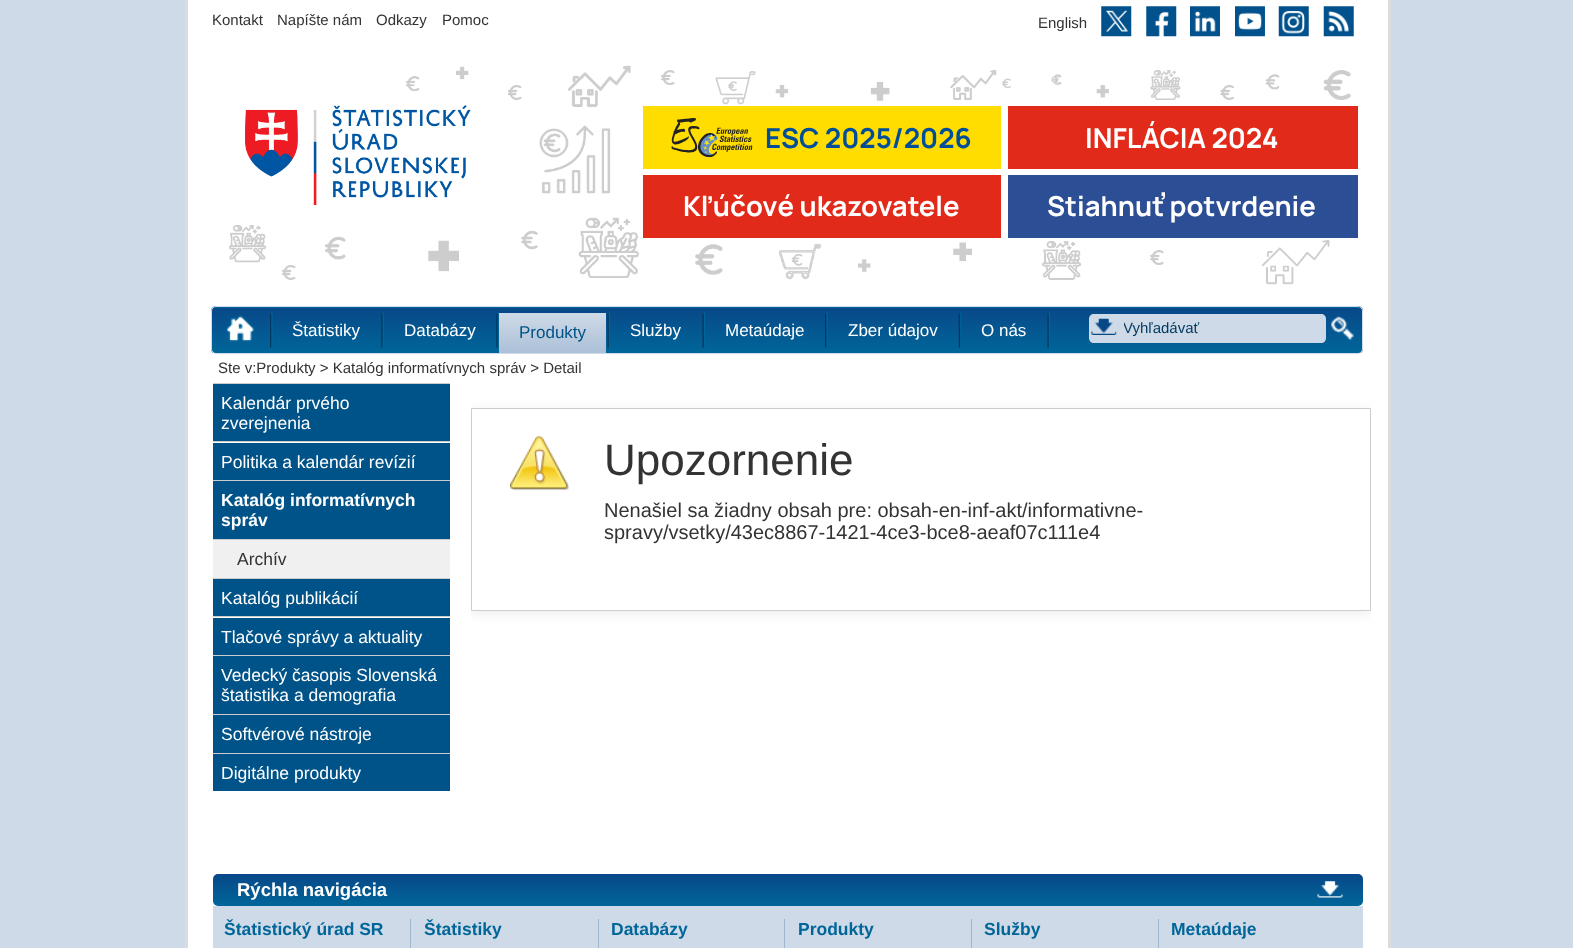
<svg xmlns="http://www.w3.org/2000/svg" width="1573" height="948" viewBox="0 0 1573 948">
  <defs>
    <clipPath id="clip1"><rect x="211" y="306" width="1152" height="48" rx="5"/></clipPath>
    <linearGradient id="g1" gradientUnits="userSpaceOnUse" x1="787" y1="262" x2="787" y2="308"><stop offset="0" stop-color="#084888"/><stop offset="1" stop-color="#069"/></linearGradient>
    <linearGradient id="g2" gradientUnits="userSpaceOnUse" x1="787" y1="307" x2="787" y2="353"><stop offset="0" stop-color="#084888"/><stop offset="1" stop-color="#069"/></linearGradient>
    <linearGradient id="g3" gradientUnits="userSpaceOnUse" x1="553" y1="313" x2="553" y2="353"><stop offset="0" stop-color="#cedae7"/><stop offset="1" stop-color="#acc0d7"/></linearGradient>
    <clipPath id="clip2"><path d="M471 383h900v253H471z"/></clipPath>
    <linearGradient id="g4" gradientUnits="userSpaceOnUse" x1="788" y1="874" x2="788" y2="906"><stop offset="0" stop-color="#084888"/><stop offset="1" stop-color="#069"/></linearGradient>
    <clipPath id="clip3"><path d="M1124 320h200v18H1124z"/></clipPath>
  </defs>
  <rect width="100%" height="100%" fill="#cedae7"/>
  <path d="M188 0h1200v948H188z" fill="#fff"/>
  <path d="M1388 0h3v948H1388z" fill="#dadbdc"/>
  <path d="M185 0h3v948H185z" fill="#dadbdc"/>
  <image x="1101" y="6" width="31" height="31" href="img/1.png"/>
  <image x="1146" y="6" width="31" height="31" href="img/2.png"/>
  <image x="1190" y="6" width="30" height="31" href="img/3.png"/>
  <image x="1235" y="6" width="30" height="31" href="img/4.png"/>
  <image x="1278" y="6" width="31" height="31" href="img/5.png"/>
  <image x="1323" y="6" width="31" height="31" href="img/6.png"/>
  <image x="229" y="65" width="1122" height="220" href="img/7.png"/>
  <image x="245" y="105" width="226" height="100" href="img/8.png"/>
  <path d="M643 106h358v63H643z" fill="#fd0"/>
  <image x="671" y="118" width="82" height="40" href="img/9.png"/>
  <path d="M1008 106h350v63H1008z" fill="#e12a19"/>
  <path d="M643 175h358v63H643z" fill="#e12a19"/>
  <path d="M1008 175h350v63H1008z" fill="#2c4e95"/>
  <g clip-path="url(#clip1)">
    <path d="M211 306h1152v2H211z" fill="url(#g1)"/>
    <path d="M211 308h1152v45H211z" fill="url(#g2)"/>
  </g>
  <rect x="211.5" y="306.5" width="1151" height="47" rx="4.5" fill="none" stroke="#cedae7"/>
  <image x="226" y="315" width="29" height="27" href="img/10.png"/>
  <image x="270" y="312" width="3" height="36" href="img/11.png"/>
  <image x="381" y="312" width="3" height="36" href="img/12.png"/>
  <image x="496" y="312" width="3" height="36" href="img/13.png"/>
  <path d="M499 313h107v40H499z" fill="url(#g3)"/>
  <path d="M499 311h107v2H499z" fill="#084888"/>
  <image x="607" y="312" width="3" height="36" href="img/14.png"/>
  <image x="702" y="312" width="3" height="36" href="img/14.png"/>
  <image x="825" y="312" width="3" height="36" href="img/11.png"/>
  <image x="958" y="312" width="4" height="36" href="img/15.png"/>
  <image x="1047" y="312" width="3" height="36" href="img/14.png"/>
  <path d="M1094 314H1121V343H1094C1091 343 1089 341 1089 338V319C1089 316 1091 314 1094 314Z" fill="#cedae7"/>
  <image x="1091" y="318" width="26" height="17" href="img/16.png"/>
  <path d="M1121 314H1321C1324 314 1326 316 1326 319V338C1326 341 1324 343 1321 343H1121Z" fill="#cedae7"/>
  <image x="1331" y="316" width="23" height="24" href="img/17.png"/>
  <path d="M213 383h237v1H213z" fill="#ccc"/>
  <path d="M213 384h237v57H213z" fill="#005388"/>
  <path d="M213 441h237v1H213z" fill="#ccc"/>
  <path d="M213 443h237v37H213z" fill="#005388"/>
  <path d="M213 480h237v1H213z" fill="#ccc"/>
  <path d="M213 481h237v58H213z" fill="#005388"/>
  <path d="M213 539h237v1H213z" fill="#ccc"/>
  <path d="M213 540h237v38H213z" fill="#f0f0f0"/>
  <path d="M213 578h237v1H213z" fill="#ccc"/>
  <path d="M213 579h237v37H213z" fill="#005388"/>
  <path d="M213 616h237v1H213z" fill="#ccc"/>
  <path d="M213 618h237v37H213z" fill="#005388"/>
  <path d="M213 655h237v1H213z" fill="#ccc"/>
  <path d="M213 656h237v58H213z" fill="#005388"/>
  <path d="M213 714h237v1H213z" fill="#ccc"/>
  <path d="M213 715h237v38H213z" fill="#005388"/>
  <path d="M213 753h237v1H213z" fill="#ccc"/>
  <path d="M213 754h237v37H213z" fill="#005388"/>
  <g clip-path="url(#clip2)">
    <path d="M471 410h900v204H471z" fill="#eee" filter="blur(6px)"/>
  </g>
  <path d="M471.5 408.5h899v202H471.5z" fill="#fff" stroke="#ccc"/>
  <image x="510" y="436" width="59" height="55" href="img/18.png"/>
  <rect x="213" y="874" width="1150" height="32" rx="5" fill="url(#g4)"/>
  <image x="1317" y="881" width="26" height="17" href="img/19.png"/>
  <path d="M213 906h1150v42H213z" fill="#cedae7"/>
  <path d="M410 919h1v29H410z" fill="#9eb6cf"/>
  <path d="M598 919h1v29H598z" fill="#9eb6cf"/>
  <path d="M784 919h1v29H784z" fill="#9eb6cf"/>
  <path d="M971 919h1v29H971z" fill="#9eb6cf"/>
  <path d="M1158 919h1v29H1158z" fill="#9eb6cf"/>
  <g font-family="Liberation Sans" font-size="15" fill="#333">
    <text x="212" y="25">Kontakt</text>
    <text x="277" y="25">Napíšte nám</text>
    <text x="376" y="25">Odkazy</text>
    <text x="442" y="25">Pomoc</text>
    <text x="1038" y="28">English</text>
  </g>
  <text x="765" y="148" font-family="Manrope" font-size="27.5" font-weight="200" fill="#004d99">ESC 2025/2026</text>
  <g font-family="Manrope" font-size="27.5" font-weight="200" fill="#fff">
    <text x="1085" y="148">INFLÁCIA 2024</text>
    <text x="683" y="216">Kľúčové ukazovatele</text>
    <text x="1047" y="216">Stiahnuť potvrdenie</text>
  </g>
  <g font-family="Liberation Sans" font-size="17" fill="#fff">
    <text x="292" y="336">Štatistiky</text>
    <text x="404" y="336">Databázy</text>
  </g>
  <text x="519" y="338" font-family="Liberation Sans" font-size="17" fill="#005388">Produkty</text>
  <g font-family="Liberation Sans" font-size="17" fill="#fff">
    <text x="630" y="336">Služby</text>
    <text x="725" y="336">Metaúdaje</text>
    <text x="848" y="336">Zber údajov</text>
    <text x="981" y="336">O nás</text>
  </g>
  <g clip-path="url(#clip3)">
    <text x="1123" y="333" font-family="Liberation Sans" font-size="15" fill="#00385e">Vyhľadávať</text>
  </g>
  <text x="218" y="373" font-family="Liberation Sans" font-size="15" fill="#333">Ste v:Produkty &gt; Katalóg informatívnych správ &gt; Detail</text>
  <g font-family="Liberation Sans" font-size="17.5" fill="#fff">
    <text x="221" y="409">Kalendár prvého</text>
    <text x="221" y="429">zverejnenia</text>
    <text x="221" y="468">Politika a kalendár revízií</text>
  </g>
  <g font-family="Liberation Sans" font-size="17.5" font-weight="bold" fill="#fff">
    <text x="221" y="506">Katalóg informatívnych</text>
    <text x="221" y="526">správ</text>
  </g>
  <text x="237" y="565" font-family="Liberation Sans" font-size="17.5" fill="#333">Archív</text>
  <g font-family="Liberation Sans" font-size="17.5" fill="#fff">
    <text x="221" y="604">Katalóg publikácií</text>
    <text x="221" y="643">Tlačové správy a aktuality</text>
    <text x="221" y="681">Vedecký časopis Slovenská</text>
    <text x="221" y="701">štatistika a demografia</text>
    <text x="221" y="740">Softvérové nástroje</text>
    <text x="221" y="779">Digitálne produkty</text>
  </g>
  <text x="604" y="475" font-family="Liberation Sans" font-size="44" fill="#333">Upozornenie</text>
  <g font-family="Liberation Sans" font-size="20" fill="#333">
    <text x="604" y="517">Nenašiel sa žiadny obsah pre: obsah-en-inf-akt/informativne-</text>
    <text x="604" y="539">spravy/vsetky/43ec8867-1421-4ce3-bce8-aeaf07c111e4</text>
  </g>
  <text x="237" y="896" font-family="Liberation Sans" font-size="18.5" font-weight="bold" fill="#fff">Rýchla navigácia</text>
  <g font-family="Liberation Sans" font-size="17.5" font-weight="bold" fill="#069">
    <text x="224" y="935">Štatistický úrad SR</text>
    <text x="424" y="935">Štatistiky</text>
    <text x="611" y="935">Databázy</text>
    <text x="798" y="935">Produkty</text>
    <text x="984" y="935">Služby</text>
    <text x="1171" y="935">Metaúdaje</text>
  </g>
</svg>
